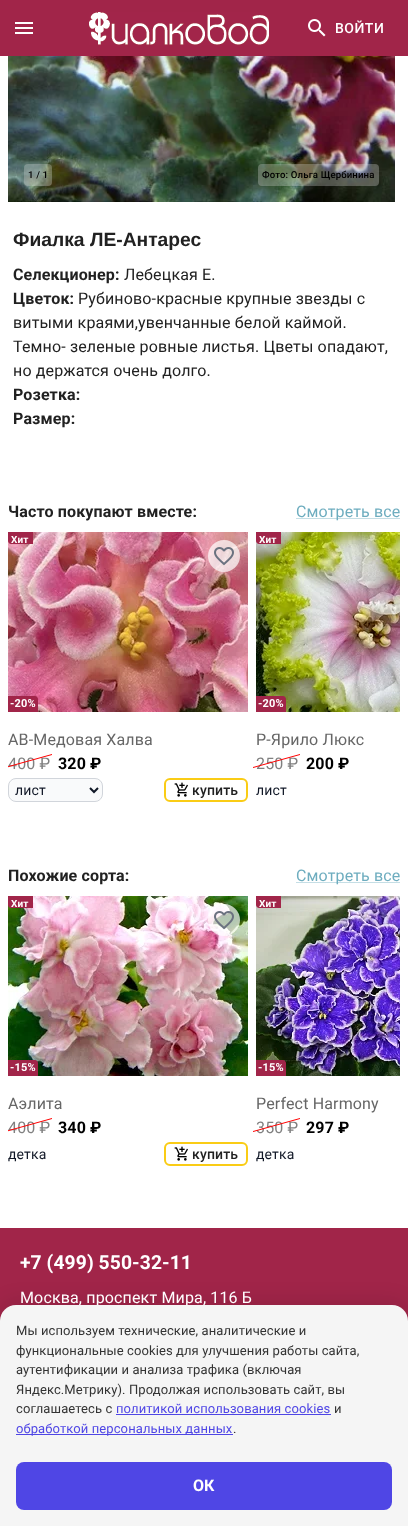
<svg xmlns="http://www.w3.org/2000/svg" width="408" height="1526" viewBox="0 0 408 1526">
  <defs>
    <clipPath id="clip1"><path d="M8 532h392v300H8z"/></clipPath>
    <clipPath id="clip2"><path d="M8 896h392v300H8z"/></clipPath>
  </defs>
  <rect width="100%" height="100%" fill="#fff"/>
  <path d="M0 0h408v56H0z" fill="#a12549"/>
  <image x="15" y="22" width="18" height="12" href="img/1.png"/>
  <image x="89" y="12" width="180" height="33" href="img/2.png"/>
  <image x="308" y="19" width="18" height="18" href="img/3.png"/>
  <image x="8" y="56" width="387" height="146" href="img/4.png"/>
  <rect x="24" y="164" width="28" height="22" rx="4" fill="#e2e2e24d"/>
  <rect x="258" y="164" width="121" height="22" rx="4" fill="#e2e2e24d"/>
  <path d="M296 518h104v1H296z" fill="#c5dee5"/>
  <image x="8" y="532" width="240" height="180" href="img/5.png"/>
  <path d="M8 532H33V544H11C9.5 544 8 542.5 8 541Z" fill="#a12549"/>
  <circle cx="224" cy="556" r="16" fill="#ffffffb3"/>
  <image x="214" y="547" width="20" height="19" href="img/6.png"/>
  <path d="M8 696H35C36.5 696 38 697.5 38 699V712H8Z" fill="#a12549"/>
  <rect x="8.5" y="778.5" width="94" height="23" rx="7.5" fill="#f9fafb" stroke="#d1d5db"/>
  <path d="M90 788L94 792L98 788" fill="none" stroke="#111827" stroke-width="2"/>
  <rect x="165" y="779" width="82" height="22" rx="5" fill="none" stroke="#facc15" stroke-width="2"/>
  <image x="174" y="782" width="14" height="15" href="img/7.png"/>
  <image x="256" y="532" width="144" height="180" href="img/8.png"/>
  <path d="M256 532H281V544H259C257.5 544 256 542.5 256 541Z" fill="#a12549"/>
  <path d="M256 696H283C284.5 696 286 697.5 286 699V712H256Z" fill="#a12549"/>
  <path d="M296 882h104v1H296z" fill="#c5dee5"/>
  <image x="8" y="896" width="240" height="180" href="img/9.png"/>
  <path d="M8 896H33V908H11C9.5 908 8 906.5 8 905Z" fill="#a12549"/>
  <circle cx="224" cy="920" r="16" fill="#ffffffb3"/>
  <image x="214" y="911" width="20" height="19" href="img/10.png"/>
  <path d="M8 1060H35C36.5 1060 38 1061.5 38 1063V1076H8Z" fill="#a12549"/>
  <rect x="165" y="1143" width="82" height="22" rx="5" fill="none" stroke="#facc15" stroke-width="2"/>
  <image x="174" y="1146" width="14" height="15" href="img/7.png"/>
  <image x="256" y="896" width="144" height="180" href="img/11.png"/>
  <path d="M256 896H281V908H259C257.5 908 256 906.5 256 905Z" fill="#a12549"/>
  <path d="M256 1060H283C284.5 1060 286 1061.5 286 1063V1076H256Z" fill="#a12549"/>
  <path d="M0 1228h408v93H0z" fill="#a12549"/>
  <rect y="1301" width="408" height="221" rx="16" fill="#0000001a" filter="blur(10px)"/>
  <text x="335" y="33" font-family="Roboto" font-size="14" font-weight="500" letter-spacing="0.5" fill="#fff">ВОЙТИ</text>
  <g font-family="Roboto" font-size="9.6" font-weight="500" letter-spacing="0.15" fill="#000">
    <text x="28" y="178">1 / 1</text>
    <text x="262" y="178">Фото: Ольга Щербинина</text>
  </g>
  <text x="13" y="246" font-family="Liberation Sans" font-size="19.25" font-weight="bold" fill="#212121">Фиалка ЛЕ-Антарес</text>
  <text x="13" y="280" font-family="Roboto" font-size="16" font-weight="bold" letter-spacing="0.15" fill="#212121">Селекционер:</text>
  <text x="124" y="280" font-family="Roboto" font-size="16" letter-spacing="0.15" fill="#212121">Лебецкая Е.</text>
  <text x="13" y="304" font-family="Roboto" font-size="16" font-weight="bold" letter-spacing="0.15" fill="#212121">Цветок:</text>
  <g font-family="Roboto" font-size="16" letter-spacing="0.15" fill="#212121">
    <text x="78" y="304">Рубиново-красные крупные звезды с</text>
    <text x="13" y="328">витыми краями,увенчанные белой каймой.</text>
    <text x="13" y="352">Темно- зеленые ровные листья. Цветы опадают,</text>
    <text x="13" y="376">но держатся очень долго.</text>
  </g>
  <g font-family="Roboto" font-size="16" font-weight="bold" letter-spacing="0.15" fill="#212121">
    <text x="13" y="400">Розетка:</text>
    <text x="13" y="424">Размер:</text>
    <text x="8" y="517">Часто покупают вместе:</text>
  </g>
  <text x="296" y="517" font-family="Roboto" font-size="16" letter-spacing="0.15" fill="#6eadbf">Смотреть все</text>
  <text x="11" y="543" font-family="Roboto" font-size="10" font-weight="bold" letter-spacing="0.15" fill="#fff">Хит</text>
  <text x="10" y="707" font-family="Roboto" font-size="11" font-weight="bold" letter-spacing="0.15" fill="#fff">-20%</text>
  <text x="8" y="745" font-family="Roboto" font-size="16" letter-spacing="0.15" fill="#666">АВ-Медовая Халва</text>
  <text x="8" y="769" font-family="Roboto" font-size="16" letter-spacing="0.15" fill="#808080">400 ₽</text>
  <g clip-path="url(#clip1)">
    <path d="M5 767L52 754V755L5 768Z" fill="#f00"/>
  </g>
  <text x="58" y="769" font-family="Roboto" font-size="16" font-weight="bold" letter-spacing="0.15" fill="#000">320 ₽</text>
  <text x="15" y="795" font-family="Roboto" font-size="14" letter-spacing="0.15" fill="#111827">лист</text>
  <text x="192" y="795" font-family="Roboto" font-size="14" font-weight="500" letter-spacing="0.15" fill="#212121">купить</text>
  <text x="259" y="543" font-family="Roboto" font-size="10" font-weight="bold" letter-spacing="0.15" fill="#fff">Хит</text>
  <text x="258" y="707" font-family="Roboto" font-size="11" font-weight="bold" letter-spacing="0.15" fill="#fff">-20%</text>
  <text x="256" y="745" font-family="Roboto" font-size="16" letter-spacing="0.15" fill="#666">Р-Ярило Люкс</text>
  <text x="256" y="769" font-family="Roboto" font-size="16" letter-spacing="0.15" fill="#808080">250 ₽</text>
  <path d="M253 767L300 754V755L253 768Z" fill="#f00"/>
  <text x="306" y="769" font-family="Roboto" font-size="16" font-weight="bold" letter-spacing="0.15" fill="#000">200 ₽</text>
  <text x="256" y="795" font-family="Roboto" font-size="14" letter-spacing="0.15" fill="#111827">лист</text>
  <text x="8" y="881" font-family="Roboto" font-size="16" font-weight="bold" letter-spacing="0.15" fill="#212121">Похожие сорта:</text>
  <text x="296" y="881" font-family="Roboto" font-size="16" letter-spacing="0.15" fill="#6eadbf">Смотреть все</text>
  <text x="11" y="907" font-family="Roboto" font-size="10" font-weight="bold" letter-spacing="0.15" fill="#fff">Хит</text>
  <text x="10" y="1071" font-family="Roboto" font-size="11" font-weight="bold" letter-spacing="0.15" fill="#fff">-15%</text>
  <text x="8" y="1109" font-family="Roboto" font-size="16" letter-spacing="0.15" fill="#666">Аэлита</text>
  <text x="8" y="1133" font-family="Roboto" font-size="16" letter-spacing="0.15" fill="#808080">400 ₽</text>
  <g clip-path="url(#clip2)">
    <path d="M5 1131L52 1118V1119L5 1132Z" fill="#f00"/>
  </g>
  <text x="58" y="1133" font-family="Roboto" font-size="16" font-weight="bold" letter-spacing="0.15" fill="#000">340 ₽</text>
  <text x="8" y="1159" font-family="Roboto" font-size="14" letter-spacing="0.15" fill="#111827">детка</text>
  <text x="192" y="1159" font-family="Roboto" font-size="14" font-weight="500" letter-spacing="0.15" fill="#212121">купить</text>
  <text x="259" y="907" font-family="Roboto" font-size="10" font-weight="bold" letter-spacing="0.15" fill="#fff">Хит</text>
  <text x="258" y="1071" font-family="Roboto" font-size="11" font-weight="bold" letter-spacing="0.15" fill="#fff">-15%</text>
  <text x="256" y="1109" font-family="Roboto" font-size="16" letter-spacing="0.15" fill="#666">Perfect Harmony</text>
  <text x="256" y="1133" font-family="Roboto" font-size="16" letter-spacing="0.15" fill="#808080">350 ₽</text>
  <path d="M253 1131L300 1118V1119L253 1132Z" fill="#f00"/>
  <text x="306" y="1133" font-family="Roboto" font-size="16" font-weight="bold" letter-spacing="0.15" fill="#000">297 ₽</text>
  <text x="256" y="1159" font-family="Roboto" font-size="14" letter-spacing="0.15" fill="#111827">детка</text>
  <text x="20" y="1269" font-family="Roboto" font-size="19.25" font-weight="bold" letter-spacing="0.1" fill="#fff">+7 (499) 550-32-11</text>
  <text x="20" y="1303" font-family="Roboto" font-size="16" letter-spacing="0.15" fill="#fff">Москва, проспект Мира, 116 Б</text>
  <path d="M16 1305H392C401 1305 408 1312 408 1321V1526H0V1321C0 1312 7 1305 16 1305Z" fill="#f5f5f5"/>
  <g font-family="Roboto" font-size="13" letter-spacing="0.1" fill="#333">
    <text x="16" y="1335">Мы используем технические, аналитические и</text>
    <text x="16" y="1355">функциональные cookies для улучшения работы сайта,</text>
    <text x="16" y="1374">аутентификации и анализа трафика (включая</text>
    <text x="16" y="1394">Яндекс.Метрику). Продолжая использовать сайт, вы</text>
    <text x="16" y="1413">соглашаетесь с</text>
  </g>
  <text x="116" y="1413" font-family="Roboto" font-size="13" letter-spacing="0.1" fill="#4f46e5">политикой использования cookies</text>
  <path d="M116 1414h215v1H116z" fill="#4f46e5"/>
  <text x="334" y="1413" font-family="Roboto" font-size="13" letter-spacing="0.1" fill="#333">и</text>
  <path d="M16 1434h217v1H16z" fill="#4f46e5"/>
  <text x="16" y="1433" font-family="Roboto" font-size="13" letter-spacing="0.1" fill="#4f46e5">обработкой персональных данных</text>
  <text x="233" y="1433" font-family="Roboto" font-size="13" letter-spacing="0.1" fill="#333">.</text>
  <rect x="16" y="1462" width="376" height="48" rx="8" fill="#4f46e5"/>
  <text x="193" y="1491" font-family="Roboto" font-size="16" font-weight="bold" fill="#fff">ОК</text>
</svg>
